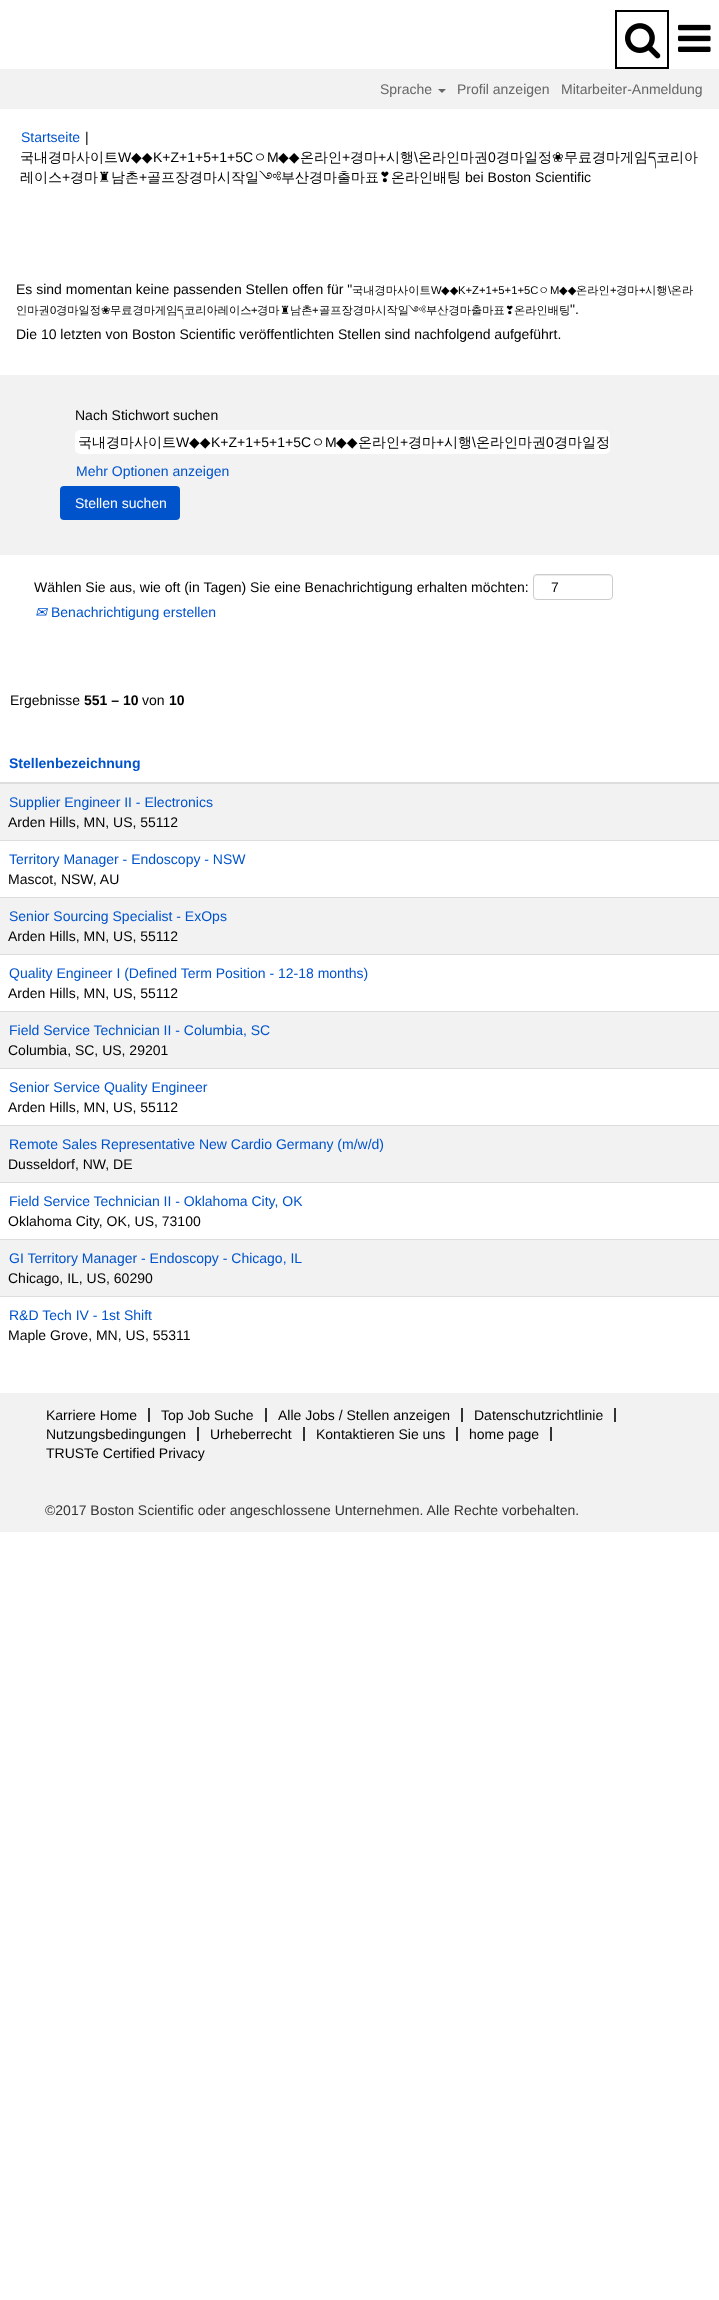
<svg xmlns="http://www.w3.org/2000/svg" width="719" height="2300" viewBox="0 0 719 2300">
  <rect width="100%" height="100%" fill="#fff"/>
  <path d="M616 11h52v57H616z" fill="none" stroke="#000" stroke-width="2"/>
  <image x="625" y="23" width="36" height="36" href="img/1.png"/>
  <image x="678" y="24" width="33" height="28" href="img/2.png"/>
  <path d="M0 69h719v40H0z" fill="#f2f2f2"/>
  <path d="M438 89H446L442 93Z" fill="#666"/>
  <path d="M0 375h719v180H0z" fill="#f2f2f2"/>
  <rect x="75" y="430" width="535" height="24" rx="5" fill="#fff"/>
  <rect x="60" y="486" width="120" height="34" rx="4" fill="#0153cc"/>
  <path d="M537 576H609C611 576 612 577 612 579C612 572 601 575 597 575H549C545 575 534 572 534 579C534 577 535 576 537 576Z" fill="#ececec"/>
  <rect x="533.5" y="574.5" width="79" height="25" rx="3.5" fill="none" stroke="#ccc"/>
  <path d="M0 782h719v2H0z" fill="#ddd"/>
  <path d="M0 784h719v56H0z" fill="#f2f2f2"/>
  <path d="M0 840h719v1H0z" fill="#ddd"/>
  <path d="M0 898h719v56H0z" fill="#f2f2f2"/>
  <path d="M0 897h719v1H0z" fill="#ddd"/>
  <path d="M0 954h719v1H0z" fill="#ddd"/>
  <path d="M0 1012h719v56H0z" fill="#f2f2f2"/>
  <path d="M0 1011h719v1H0z" fill="#ddd"/>
  <path d="M0 1068h719v1H0z" fill="#ddd"/>
  <path d="M0 1126h719v56H0z" fill="#f2f2f2"/>
  <path d="M0 1125h719v1H0z" fill="#ddd"/>
  <path d="M0 1182h719v1H0z" fill="#ddd"/>
  <path d="M0 1240h719v56H0z" fill="#f2f2f2"/>
  <path d="M0 1239h719v1H0z" fill="#ddd"/>
  <path d="M0 1296h719v1H0z" fill="#ddd"/>
  <path d="M0 1393h719v139H0z" fill="#f2f2f2"/>
  <path d="M148 1408h2v14H148z" fill="#333"/>
  <path d="M265 1408h2v14H265z" fill="#333"/>
  <path d="M461 1408h2v14H461z" fill="#333"/>
  <path d="M614 1408h2v14H614z" fill="#333"/>
  <path d="M197 1427h2v14H197z" fill="#333"/>
  <path d="M303 1427h2v14H303z" fill="#333"/>
  <path d="M456 1427h2v14H456z" fill="#333"/>
  <path d="M550 1427h2v14H550z" fill="#333"/>
  <g font-family="Liberation Sans" font-size="14" fill="#666">
    <text x="380" y="94">Sprache</text>
    <text x="457" y="94">Profil anzeigen</text>
    <text x="561" y="94">Mitarbeiter-Anmeldung</text>
  </g>
  <text x="21" y="142" font-family="Liberation Sans" font-size="14" fill="#0153cc">Startseite</text>
  <text x="85" y="142" font-family="Liberation Sans" font-size="14" fill="#000">|</text>
  <text x="20" y="162" font-family="WenQuanYi Zen Hei" font-size="14" font-weight="500" fill="#000">국내경마사이트</text>
  <text x="118" y="162" font-family="Liberation Sans" font-size="14" fill="#000">W</text>
  <text x="131" y="162" font-family="DejaVu Sans" font-size="14" fill="#000">◆◆</text>
  <text x="153" y="162" font-family="Liberation Sans" font-size="14" fill="#000">K+Z+1+5+1+5C</text>
  <text x="253" y="162" font-family="WenQuanYi Zen Hei" font-size="14" font-weight="500" fill="#000">ㅇ</text>
  <text x="267" y="162" font-family="Liberation Sans" font-size="14" fill="#000">M</text>
  <text x="278" y="162" font-family="DejaVu Sans" font-size="14" fill="#000">◆◆</text>
  <text x="300" y="162" font-family="WenQuanYi Zen Hei" font-size="14" font-weight="500" fill="#000">온라인</text>
  <text x="342" y="162" font-family="Liberation Sans" font-size="14" fill="#000">+</text>
  <text x="350" y="162" font-family="WenQuanYi Zen Hei" font-size="14" font-weight="500" fill="#000">경마</text>
  <text x="378" y="162" font-family="Liberation Sans" font-size="14" fill="#000">+</text>
  <text x="386" y="162" font-family="WenQuanYi Zen Hei" font-size="14" font-weight="500" fill="#000">시행</text>
  <text x="414" y="162" font-family="Liberation Sans" font-size="14" fill="#000">\</text>
  <text x="418" y="162" font-family="WenQuanYi Zen Hei" font-size="14" font-weight="500" fill="#000">온라인마권</text>
  <text x="488" y="162" font-family="Liberation Sans" font-size="14" fill="#000">0</text>
  <text x="496" y="162" font-family="WenQuanYi Zen Hei" font-size="14" font-weight="500" fill="#000">경마일정</text>
  <text x="552" y="162" font-family="DejaVu Sans" font-size="14" fill="#000">❀</text>
  <text x="564" y="162" font-family="WenQuanYi Zen Hei" font-size="14" font-weight="500" fill="#000">무료경마게임</text>
  <text x="648" y="162" font-family="Noto Serif Tibetan" font-size="14" fill="#000">ད</text>
  <g font-family="WenQuanYi Zen Hei" font-size="14" font-weight="500" fill="#000">
    <text x="656" y="162">코리아</text>
    <text x="20" y="182">레이스</text>
  </g>
  <text x="62" y="182" font-family="Liberation Sans" font-size="14" fill="#000">+</text>
  <text x="70" y="182" font-family="WenQuanYi Zen Hei" font-size="14" font-weight="500" fill="#000">경마</text>
  <text x="98" y="182" font-family="DejaVu Sans" font-size="14" fill="#000">♜</text>
  <text x="111" y="182" font-family="WenQuanYi Zen Hei" font-size="14" font-weight="500" fill="#000">남촌</text>
  <text x="139" y="182" font-family="Liberation Sans" font-size="14" fill="#000">+</text>
  <text x="147" y="182" font-family="WenQuanYi Zen Hei" font-size="14" font-weight="500" fill="#000">골프장경마시작일</text>
  <text x="259" y="182" font-family="Noto Serif Tibetan" font-size="14" fill="#000">༺</text>
  <text x="281" y="182" font-family="WenQuanYi Zen Hei" font-size="14" font-weight="500" fill="#000">부산경마출마표</text>
  <text x="379" y="182" font-family="DejaVu Sans" font-size="14" fill="#000">❣</text>
  <text x="391" y="182" font-family="WenQuanYi Zen Hei" font-size="14" font-weight="500" fill="#000">온라인배팅</text>
  <g font-family="Liberation Sans" font-size="14" fill="#000">
    <text x="465" y="182">bei Boston Scientific</text>
    <text x="16" y="294">Es sind momentan keine passenden Stellen offen für "</text>
  </g>
  <g font-family="WenQuanYi Zen Hei" font-size="11.25" font-weight="500" fill="#000">
    <text x="352" y="294">국내경마사이트</text>
    <text x="576" y="294">온라인</text>
    <text x="616" y="294">경마</text>
    <text x="645" y="294">시행 온라</text>
  </g>
  <text x="431" y="294" font-family="Liberation Sans" font-size="11.25" fill="#000">W</text>
  <text x="441" y="294" font-family="DejaVu Sans" font-size="11.25" fill="#000">◆◆</text>
  <text x="458" y="294" font-family="Liberation Sans" font-size="11.25" fill="#000">K+Z+1+5+1+5C</text>
  <text x="538" y="294" font-family="WenQuanYi Zen Hei" font-size="11.25" font-weight="500" fill="#000">ㅇ</text>
  <text x="550" y="294" font-family="Liberation Sans" font-size="11.25" fill="#000">M</text>
  <text x="559" y="294" font-family="DejaVu Sans" font-size="11.25" fill="#000">◆◆</text>
  <g font-family="Liberation Sans" font-size="11.25" fill="#000">
    <text x="610" y="294">+</text>
    <text x="639" y="294">+</text>
    <text x="668" y="294">\</text>
  </g>
  <text x="16" y="314" font-family="WenQuanYi Zen Hei" font-size="11.25" font-weight="500" fill="#000">인마권</text>
  <text x="50" y="314" font-family="Liberation Sans" font-size="11.25" fill="#000">0</text>
  <text x="56" y="314" font-family="WenQuanYi Zen Hei" font-size="11.25" font-weight="500" fill="#000">경마일정</text>
  <text x="101" y="314" font-family="DejaVu Sans" font-size="11.25" fill="#000">❀</text>
  <text x="110" y="314" font-family="WenQuanYi Zen Hei" font-size="11.25" font-weight="500" fill="#000">무료경마게임</text>
  <text x="177" y="314" font-family="Noto Serif Tibetan" font-size="11.25" fill="#000">ད</text>
  <text x="184" y="314" font-family="WenQuanYi Zen Hei" font-size="11.25" font-weight="500" fill="#000">코리아레이스</text>
  <text x="251" y="314" font-family="Liberation Sans" font-size="11.25" fill="#000">+</text>
  <text x="257" y="314" font-family="WenQuanYi Zen Hei" font-size="11.25" font-weight="500" fill="#000">경마</text>
  <text x="280" y="314" font-family="DejaVu Sans" font-size="11.25" fill="#000">♜</text>
  <text x="290" y="314" font-family="WenQuanYi Zen Hei" font-size="11.25" font-weight="500" fill="#000">남촌</text>
  <text x="312" y="314" font-family="Liberation Sans" font-size="11.25" fill="#000">+</text>
  <text x="319" y="314" font-family="WenQuanYi Zen Hei" font-size="11.25" font-weight="500" fill="#000">골프장경마시작일</text>
  <text x="408" y="314" font-family="Noto Serif Tibetan" font-size="11.25" fill="#000">༺</text>
  <text x="426" y="314" font-family="WenQuanYi Zen Hei" font-size="11.25" font-weight="500" fill="#000">부산경마출마표</text>
  <text x="505" y="314" font-family="DejaVu Sans" font-size="11.25" fill="#000">❣</text>
  <text x="514" y="314" font-family="WenQuanYi Zen Hei" font-size="11.25" font-weight="500" fill="#000">온라인배팅</text>
  <g font-family="Liberation Sans" font-size="14" fill="#000">
    <text x="570" y="314">".</text>
    <text x="16" y="339">Die 10 letzten von Boston Scientific veröffentlichten Stellen sind nachfolgend aufgeführt.</text>
    <text x="75" y="420">Nach Stichwort suchen</text>
  </g>
  <text x="78" y="447" font-family="WenQuanYi Zen Hei" font-size="14" font-weight="500" fill="#000">국내경마사이트</text>
  <text x="176" y="447" font-family="Liberation Sans" font-size="14" fill="#000">W</text>
  <text x="189" y="447" font-family="DejaVu Sans" font-size="14" fill="#000">◆◆</text>
  <text x="211" y="447" font-family="Liberation Sans" font-size="14" fill="#000">K+Z+1+5+1+5C</text>
  <text x="311" y="447" font-family="WenQuanYi Zen Hei" font-size="14" font-weight="500" fill="#000">ㅇ</text>
  <text x="325" y="447" font-family="Liberation Sans" font-size="14" fill="#000">M</text>
  <text x="336" y="447" font-family="DejaVu Sans" font-size="14" fill="#000">◆◆</text>
  <text x="358" y="447" font-family="WenQuanYi Zen Hei" font-size="14" font-weight="500" fill="#000">온라인</text>
  <text x="400" y="447" font-family="Liberation Sans" font-size="14" fill="#000">+</text>
  <text x="408" y="447" font-family="WenQuanYi Zen Hei" font-size="14" font-weight="500" fill="#000">경마</text>
  <text x="436" y="447" font-family="Liberation Sans" font-size="14" fill="#000">+</text>
  <text x="444" y="447" font-family="WenQuanYi Zen Hei" font-size="14" font-weight="500" fill="#000">시행</text>
  <text x="472" y="447" font-family="Liberation Sans" font-size="14" fill="#000">\</text>
  <text x="476" y="447" font-family="WenQuanYi Zen Hei" font-size="14" font-weight="500" fill="#000">온라인마권</text>
  <text x="546" y="447" font-family="Liberation Sans" font-size="14" fill="#000">0</text>
  <text x="554" y="447" font-family="WenQuanYi Zen Hei" font-size="14" font-weight="500" fill="#000">경마일정</text>
  <text x="76" y="476" font-family="Liberation Sans" font-size="14" fill="#0153cc">Mehr Optionen anzeigen</text>
  <text x="75" y="508" font-family="Liberation Sans" font-size="14" fill="#fff">Stellen suchen</text>
  <g font-family="Liberation Sans" font-size="14" fill="#000">
    <text x="34" y="592">Wählen Sie aus, wie oft (in Tagen) Sie eine Benachrichtigung erhalten möchten:</text>
    <text x="551" y="592">7</text>
  </g>
  <text x="35" y="617" font-family="DejaVu Sans" font-size="14" font-style="italic" fill="#0153cc">✉</text>
  <text x="51" y="617" font-family="Liberation Sans" font-size="14" fill="#0153cc">Benachrichtigung erstellen</text>
  <text x="10" y="705" font-family="Liberation Sans" font-size="14" fill="#000">Ergebnisse</text>
  <text x="84" y="705" font-family="Liberation Sans" font-size="14" font-weight="bold" fill="#000">551 – 10</text>
  <text x="142" y="705" font-family="Liberation Sans" font-size="14" fill="#000">von</text>
  <text x="169" y="705" font-family="Liberation Sans" font-size="14" font-weight="bold" fill="#000">10</text>
  <text x="9" y="768" font-family="Liberation Sans" font-size="14" font-weight="bold" fill="#0153cc">Stellenbezeichnung</text>
  <text x="9" y="807" font-family="Liberation Sans" font-size="14" fill="#0153cc">Supplier Engineer II - Electronics</text>
  <text x="8" y="827" font-family="Liberation Sans" font-size="14" fill="#000">Arden Hills, MN, US, 55112</text>
  <text x="9" y="864" font-family="Liberation Sans" font-size="14" fill="#0153cc">Territory Manager - Endoscopy - NSW</text>
  <text x="8" y="884" font-family="Liberation Sans" font-size="14" fill="#000">Mascot, NSW, AU</text>
  <text x="9" y="921" font-family="Liberation Sans" font-size="14" fill="#0153cc">Senior Sourcing Specialist - ExOps</text>
  <text x="8" y="941" font-family="Liberation Sans" font-size="14" fill="#000">Arden Hills, MN, US, 55112</text>
  <text x="9" y="978" font-family="Liberation Sans" font-size="14" fill="#0153cc">Quality Engineer I (Defined Term Position - 12-18 months)</text>
  <text x="8" y="998" font-family="Liberation Sans" font-size="14" fill="#000">Arden Hills, MN, US, 55112</text>
  <text x="9" y="1035" font-family="Liberation Sans" font-size="14" fill="#0153cc">Field Service Technician II - Columbia, SC</text>
  <text x="8" y="1055" font-family="Liberation Sans" font-size="14" fill="#000">Columbia, SC, US, 29201</text>
  <text x="9" y="1092" font-family="Liberation Sans" font-size="14" fill="#0153cc">Senior Service Quality Engineer</text>
  <text x="8" y="1112" font-family="Liberation Sans" font-size="14" fill="#000">Arden Hills, MN, US, 55112</text>
  <text x="9" y="1149" font-family="Liberation Sans" font-size="14" fill="#0153cc">Remote Sales Representative New Cardio Germany (m/w/d)</text>
  <text x="8" y="1169" font-family="Liberation Sans" font-size="14" fill="#000">Dusseldorf, NW, DE</text>
  <text x="9" y="1206" font-family="Liberation Sans" font-size="14" fill="#0153cc">Field Service Technician II - Oklahoma City, OK</text>
  <text x="8" y="1226" font-family="Liberation Sans" font-size="14" fill="#000">Oklahoma City, OK, US, 73100</text>
  <text x="9" y="1263" font-family="Liberation Sans" font-size="14" fill="#0153cc">GI Territory Manager - Endoscopy - Chicago, IL</text>
  <text x="8" y="1283" font-family="Liberation Sans" font-size="14" fill="#000">Chicago, IL, US, 60290</text>
  <text x="9" y="1320" font-family="Liberation Sans" font-size="14" fill="#0153cc">R&amp;D Tech IV - 1st Shift</text>
  <g font-family="Liberation Sans" font-size="14" fill="#000">
    <text x="8" y="1340">Maple Grove, MN, US, 55311</text>
    <text x="46" y="1420">Karriere Home</text>
    <text x="161" y="1420">Top Job Suche</text>
    <text x="278" y="1420">Alle Jobs / Stellen anzeigen</text>
    <text x="474" y="1420">Datenschutzrichtlinie</text>
    <text x="46" y="1439">Nutzungsbedingungen</text>
    <text x="210" y="1439">Urheberrecht</text>
    <text x="316" y="1439">Kontaktieren Sie uns</text>
    <text x="469" y="1439">home page</text>
    <text x="46" y="1458">TRUSTe Certified Privacy</text>
  </g>
  <text x="45" y="1515" font-family="Liberation Sans" font-size="14" fill="#333">©2017 Boston Scientific oder angeschlossene Unternehmen. Alle Rechte vorbehalten.</text>
</svg>
